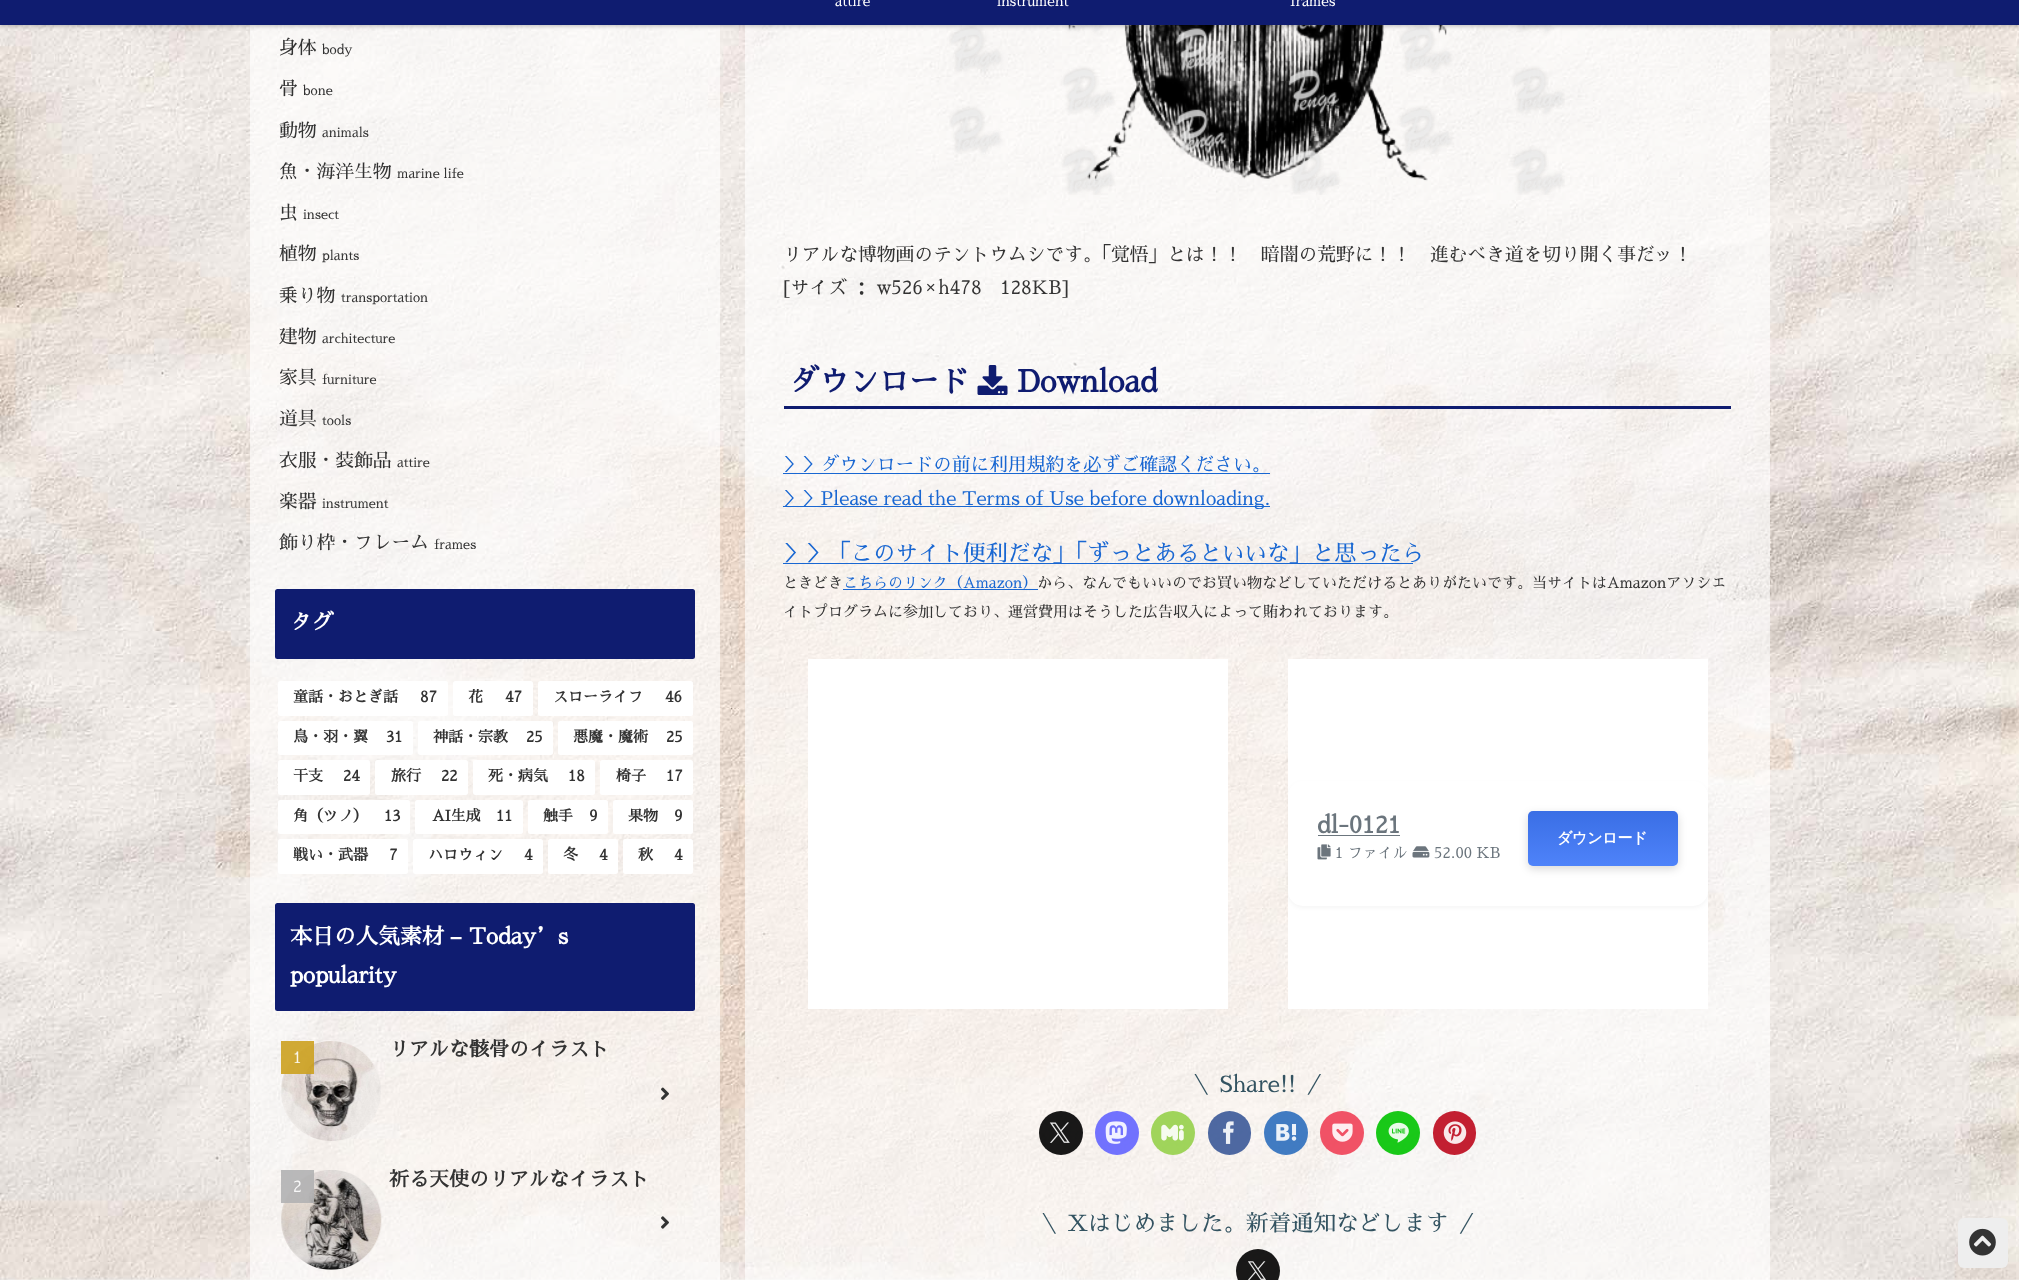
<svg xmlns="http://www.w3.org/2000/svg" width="2019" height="1280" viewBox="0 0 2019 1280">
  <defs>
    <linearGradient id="g1" gradientUnits="userSpaceOnUse" x1="1603" y1="811" x2="1603" y2="866"><stop offset="0" stop-color="#000" stop-opacity="0.08"/><stop offset="1" stop-color="#fff" stop-opacity="0.08"/></linearGradient>
  </defs>
  <rect width="100%" height="100%" fill="#fff"/>
  <image x="0" y="25" width="2019" height="1255" href="img/1.png"/>
  <path d="M250 25h470v1255H250z" fill="#ffffffa3"/>
  <path d="M745 25h1025v1255H745z" fill="#ffffffa3"/>
  <image x="949" y="25" width="616" height="170" href="img/6.png"/>
  <path d="M0 -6h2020v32H0z" fill="#00000040" filter="blur(2px)"/>
  <path d="M0 0h2019v25H0z" fill="#0f1c70"/>
  <rect x="275" y="589" width="420" height="70" rx="2.5" fill="#0f1c70"/>
  <rect x="278" y="681" width="170" height="35" rx="2.5" fill="#fff"/>
  <rect x="453" y="681" width="80" height="35" rx="2.5" fill="#fff"/>
  <rect x="538" y="681" width="155" height="35" rx="2.5" fill="#fff"/>
  <rect x="278" y="721" width="135" height="34" rx="2.5" fill="#fff"/>
  <rect x="418" y="721" width="135" height="34" rx="2.5" fill="#fff"/>
  <rect x="558" y="721" width="135" height="34" rx="2.5" fill="#fff"/>
  <rect x="278" y="760" width="92" height="35" rx="2.5" fill="#fff"/>
  <rect x="375" y="760" width="93" height="35" rx="2.5" fill="#fff"/>
  <rect x="473" y="760" width="122" height="35" rx="2.5" fill="#fff"/>
  <rect x="600" y="760" width="93" height="35" rx="2.5" fill="#fff"/>
  <rect x="278" y="800" width="132" height="34" rx="2.5" fill="#fff"/>
  <rect x="415" y="800" width="108" height="34" rx="2.5" fill="#fff"/>
  <rect x="528" y="800" width="80" height="34" rx="2.5" fill="#fff"/>
  <rect x="613" y="800" width="80" height="34" rx="2.5" fill="#fff"/>
  <rect x="278" y="839" width="130" height="35" rx="2.5" fill="#fff"/>
  <rect x="413" y="839" width="130" height="35" rx="2.5" fill="#fff"/>
  <rect x="548" y="839" width="70" height="35" rx="2.5" fill="#fff"/>
  <rect x="623" y="839" width="70" height="35" rx="2.5" fill="#fff"/>
  <rect x="275" y="903" width="420" height="108" rx="2.5" fill="#0f1c70"/>
  <image x="281" y="1041" width="100" height="100" href="img/2.png"/>
  <path d="M281 1041h33v33H281z" fill="#cca11fe6"/>
  <image x="661" y="1087" width="8" height="13" href="img/3.png"/>
  <image x="281" y="1170" width="101" height="100" href="img/4.png"/>
  <path d="M281 1170h33v33H281z" fill="#b1b1b3e6"/>
  <image x="661" y="1216" width="8" height="13" href="img/5.png"/>
  <path d="M784 406h947v3H784z" fill="#0f1c70"/>
  <image x="977" y="365" width="31" height="30" href="img/7.png"/>
  <path d="M783 473h487v1H783z" fill="#1967d2"/>
  <path d="M783 506h487v1H783z" fill="#1967d2"/>
  <path d="M783 563h630v1H783z" fill="#1967d2"/>
  <path d="M843 589h195v1H843z" fill="#1967d2"/>
  <path d="M808 659h420v350H808z" fill="#fff"/>
  <path d="M1288 659h420v350H1288z" fill="#fff"/>
  <rect x="1288" y="783" width="420" height="125" rx="15" fill="#0000000a" filter="blur(2px)"/>
  <rect x="1288" y="781" width="420" height="125" rx="15" fill="#fff"/>
  <path d="M1318 835h82v1H1318z" fill="#6b757d"/>
  <image x="1317" y="844" width="14" height="16" href="img/8.png"/>
  <image x="1412" y="846" width="18" height="12" href="img/9.png"/>
  <rect x="1528" y="814" width="150" height="55" rx="5" fill="#00000026" filter="blur(4px)"/>
  <rect x="1528" y="811" width="150" height="55" rx="5" fill="#3f78f9"/>
  <rect x="1528" y="811" width="150" height="55" rx="5" fill="url(#g1)"/>
  <circle cx="1061" cy="1133" r="22" fill="#000000e6"/>
  <image x="1049" y="1122" width="21" height="21" href="img/10.png"/>
  <circle cx="1117" cy="1133" r="22" fill="#6364ffe6"/>
  <image x="1105" y="1121" width="22" height="23" href="img/11.png"/>
  <circle cx="1173" cy="1133" r="22" fill="#96d04ae6"/>
  <image x="1161" y="1124" width="23" height="17" href="img/12.png"/>
  <rect x="1208" y="1111" width="43" height="44" rx="21.5" fill="#3b5998e6"/>
  <image x="1223" y="1121" width="11" height="23" href="img/13.png"/>
  <circle cx="1286" cy="1133" r="22" fill="#2c6ebde6"/>
  <image x="1276" y="1124" width="21" height="17" href="img/14.png"/>
  <circle cx="1342" cy="1133" r="22" fill="#ef4056e6"/>
  <image x="1332" y="1123" width="21" height="19" href="img/15.png"/>
  <circle cx="1398" cy="1133" r="22" fill="#00c300e6"/>
  <image x="1388" y="1122" width="21" height="21" href="img/16.png"/>
  <rect x="1433" y="1111" width="43" height="44" rx="21.5" fill="#bd081ce6"/>
  <image x="1443" y="1121" width="24" height="23" href="img/17.png"/>
  <circle cx="1258" cy="1271" r="22" fill="#000000e6"/>
  <image x="1248" y="1261" width="18" height="19" href="img/18.png"/>
  <rect x="1958" y="1218" width="50" height="50" rx="6" fill="#eee"/>
  <image x="1969" y="1228" width="27" height="28" href="img/19.png"/>
  <g font-family="Sawarabi Mincho" font-size="14" fill="#fff">
    <text x="835" y="6">attire</text>
    <text x="997" y="6">instrument</text>
    <text x="1290" y="6">frames</text>
  </g>
  <text x="279" y="54" font-family="Sawarabi Mincho" font-size="18.75" fill="#333">身体</text>
  <text x="322" y="54" font-family="Sawarabi Mincho" font-size="13" fill="#333">body</text>
  <text x="279" y="95" font-family="Sawarabi Mincho" font-size="18.75" fill="#333">骨</text>
  <text x="303" y="95" font-family="Sawarabi Mincho" font-size="13" fill="#333">bone</text>
  <text x="279" y="137" font-family="Sawarabi Mincho" font-size="18.75" fill="#333">動物</text>
  <text x="322" y="137" font-family="Sawarabi Mincho" font-size="13" fill="#333">animals</text>
  <text x="279" y="178" font-family="Sawarabi Mincho" font-size="18.75" fill="#333">魚・海洋生物</text>
  <text x="397" y="178" font-family="Sawarabi Mincho" font-size="13" fill="#333">marine life</text>
  <text x="279" y="219" font-family="Sawarabi Mincho" font-size="18.75" fill="#333">虫</text>
  <text x="303" y="219" font-family="Sawarabi Mincho" font-size="13" fill="#333">insect</text>
  <text x="279" y="260" font-family="Sawarabi Mincho" font-size="18.75" fill="#333">植物</text>
  <text x="322" y="260" font-family="Sawarabi Mincho" font-size="13" fill="#333">plants</text>
  <text x="279" y="302" font-family="Sawarabi Mincho" font-size="18.75" fill="#333">乗り物</text>
  <text x="341" y="302" font-family="Sawarabi Mincho" font-size="13" fill="#333">transportation</text>
  <text x="279" y="343" font-family="Sawarabi Mincho" font-size="18.75" fill="#333">建物</text>
  <text x="322" y="343" font-family="Sawarabi Mincho" font-size="13" fill="#333">architecture</text>
  <text x="279" y="384" font-family="Sawarabi Mincho" font-size="18.75" fill="#333">家具</text>
  <text x="322" y="384" font-family="Sawarabi Mincho" font-size="13" fill="#333">furniture</text>
  <text x="279" y="425" font-family="Sawarabi Mincho" font-size="18.75" fill="#333">道具</text>
  <text x="322" y="425" font-family="Sawarabi Mincho" font-size="13" fill="#333">tools</text>
  <text x="279" y="467" font-family="Sawarabi Mincho" font-size="18.75" fill="#333">衣服・装飾品</text>
  <text x="397" y="467" font-family="Sawarabi Mincho" font-size="13" fill="#333">attire</text>
  <text x="279" y="508" font-family="Sawarabi Mincho" font-size="18.75" fill="#333">楽器</text>
  <text x="322" y="508" font-family="Sawarabi Mincho" font-size="13" fill="#333">instrument</text>
  <text x="279" y="549" font-family="Sawarabi Mincho" font-size="18.75" fill="#333">飾り枠・フレーム</text>
  <text x="434" y="549" font-family="Sawarabi Mincho" font-size="13" fill="#333">frames</text>
  <text x="290" y="630" font-family="Sawarabi Mincho" font-size="22" font-weight="bold" fill="#fff">タグ</text>
  <g font-family="Sawarabi Mincho" font-size="15" font-weight="bold" fill="#333">
    <text x="293" y="702">童話・おとぎ話</text>
    <text x="420" y="702">87</text>
    <text x="468" y="702">花</text>
    <text x="505" y="702">47</text>
    <text x="553" y="702">スローライフ</text>
    <text x="665" y="702">46</text>
    <text x="293" y="742">鳥・羽・翼</text>
    <text x="386" y="742">31</text>
    <text x="433" y="742">神話・宗教</text>
    <text x="526" y="742">25</text>
    <text x="573" y="742">悪魔・魔術</text>
    <text x="666" y="742">25</text>
    <text x="293" y="781">干支</text>
    <text x="343" y="781">24</text>
    <text x="391" y="781">旅行</text>
    <text x="441" y="781">22</text>
    <text x="488" y="781">死・病気</text>
    <text x="568" y="781">18</text>
    <text x="616" y="781">椅子</text>
    <text x="666" y="781">17</text>
    <text x="293" y="821">角（ツノ）</text>
    <text x="384" y="821">13</text>
    <text x="432" y="821">AI生成</text>
    <text x="496" y="821">11</text>
    <text x="543" y="821">触手</text>
    <text x="589" y="821">9</text>
    <text x="628" y="821">果物</text>
    <text x="674" y="821">9</text>
    <text x="293" y="860">戦い・武器</text>
    <text x="389" y="860">7</text>
    <text x="428" y="860">ハロウィン</text>
    <text x="524" y="860">4</text>
    <text x="563" y="860">冬</text>
    <text x="599" y="860">4</text>
    <text x="638" y="860">秋</text>
    <text x="674" y="860">4</text>
  </g>
  <text x="290" y="944" font-family="Sawarabi Mincho" font-size="22" font-weight="bold" fill="#fff">本日の人気素材</text>
  <text x="450" y="944" font-family="Liberation Sans" font-size="22" font-weight="bold" fill="#fff">–</text>
  <g font-family="Sawarabi Mincho" font-size="22" font-weight="bold" fill="#fff">
    <text x="469" y="944">Today’s</text>
    <text x="290" y="983">popularity</text>
  </g>
  <text x="293" y="1063" font-family="Sawarabi Mincho" font-size="16" fill="#faf6ea">1</text>
  <text x="389" y="1056" font-family="Sawarabi Mincho" font-size="20" font-weight="bold" fill="#333">リアルな骸骨のイラスト</text>
  <text x="293" y="1192" font-family="Sawarabi Mincho" font-size="16" fill="#f8f8f8">2</text>
  <text x="389" y="1186" font-family="Sawarabi Mincho" font-size="20" font-weight="bold" fill="#333">祈る天使のリアルなイラスト</text>
  <g font-family="Sawarabi Mincho" font-size="18.75" fill="#333">
    <text x="783" y="261">リアルな博物画のテントウムシです。「覚悟」とは！！　暗闇の荒野に！！　進むべき道を切り開く事だッ！</text>
    <text x="783" y="294">[サイズ ： w526 × h478　128KB]</text>
  </g>
  <g font-family="Sawarabi Mincho" font-size="30" font-weight="bold" fill="#0f1c70">
    <text x="789" y="392">ダウンロード</text>
    <text x="1017" y="392">Download</text>
  </g>
  <g font-family="Sawarabi Mincho" font-size="18.75" fill="#1967d2">
    <text x="783" y="471">＞＞ダウンロードの前に利用規約を必ずご確認ください。</text>
    <text x="783" y="505">＞＞Please read the Terms of Use before downloading.</text>
  </g>
  <text x="783" y="561" font-family="Sawarabi Mincho" font-size="22.5" fill="#1967d2">＞＞「このサイト便利だな」「ずっとあるといいな」と思ったら</text>
  <text x="783" y="588" font-family="Sawarabi Mincho" font-size="15" fill="#333">ときどき</text>
  <text x="843" y="588" font-family="Sawarabi Mincho" font-size="15" fill="#1967d2">こちらのリンク（Amazon）</text>
  <g font-family="Sawarabi Mincho" font-size="15" fill="#333">
    <text x="1037" y="588">から、なんでもいいのでお買い物などしていただけるとありがたいです。当サイトはAmazonアソシエ</text>
    <text x="783" y="617">イトプログラムに参加しており、運営費用はそうした広告収入によって賄われております。</text>
  </g>
  <text x="1317" y="833" font-family="Sawarabi Mincho" font-size="23.5" font-weight="bold" fill="#6b757d">dl-0121</text>
  <g font-family="Sawarabi Mincho" font-size="15" fill="#6b757d">
    <text x="1335" y="858">1 ファイル</text>
    <text x="1434" y="858">52.00 KB</text>
  </g>
  <text x="1557" y="843" font-family="WenQuanYi Zen Hei" font-size="15" font-weight="bold" letter-spacing="-0.25" fill="#fff">ダウンロード</text>
  <g font-family="Sawarabi Mincho" font-size="22.5" fill="#335361">
    <text x="1190" y="1092">＼ Share!! ／</text>
    <text x="1038" y="1231">＼ Xはじめました。新着通知などします ／</text>
  </g>
</svg>
